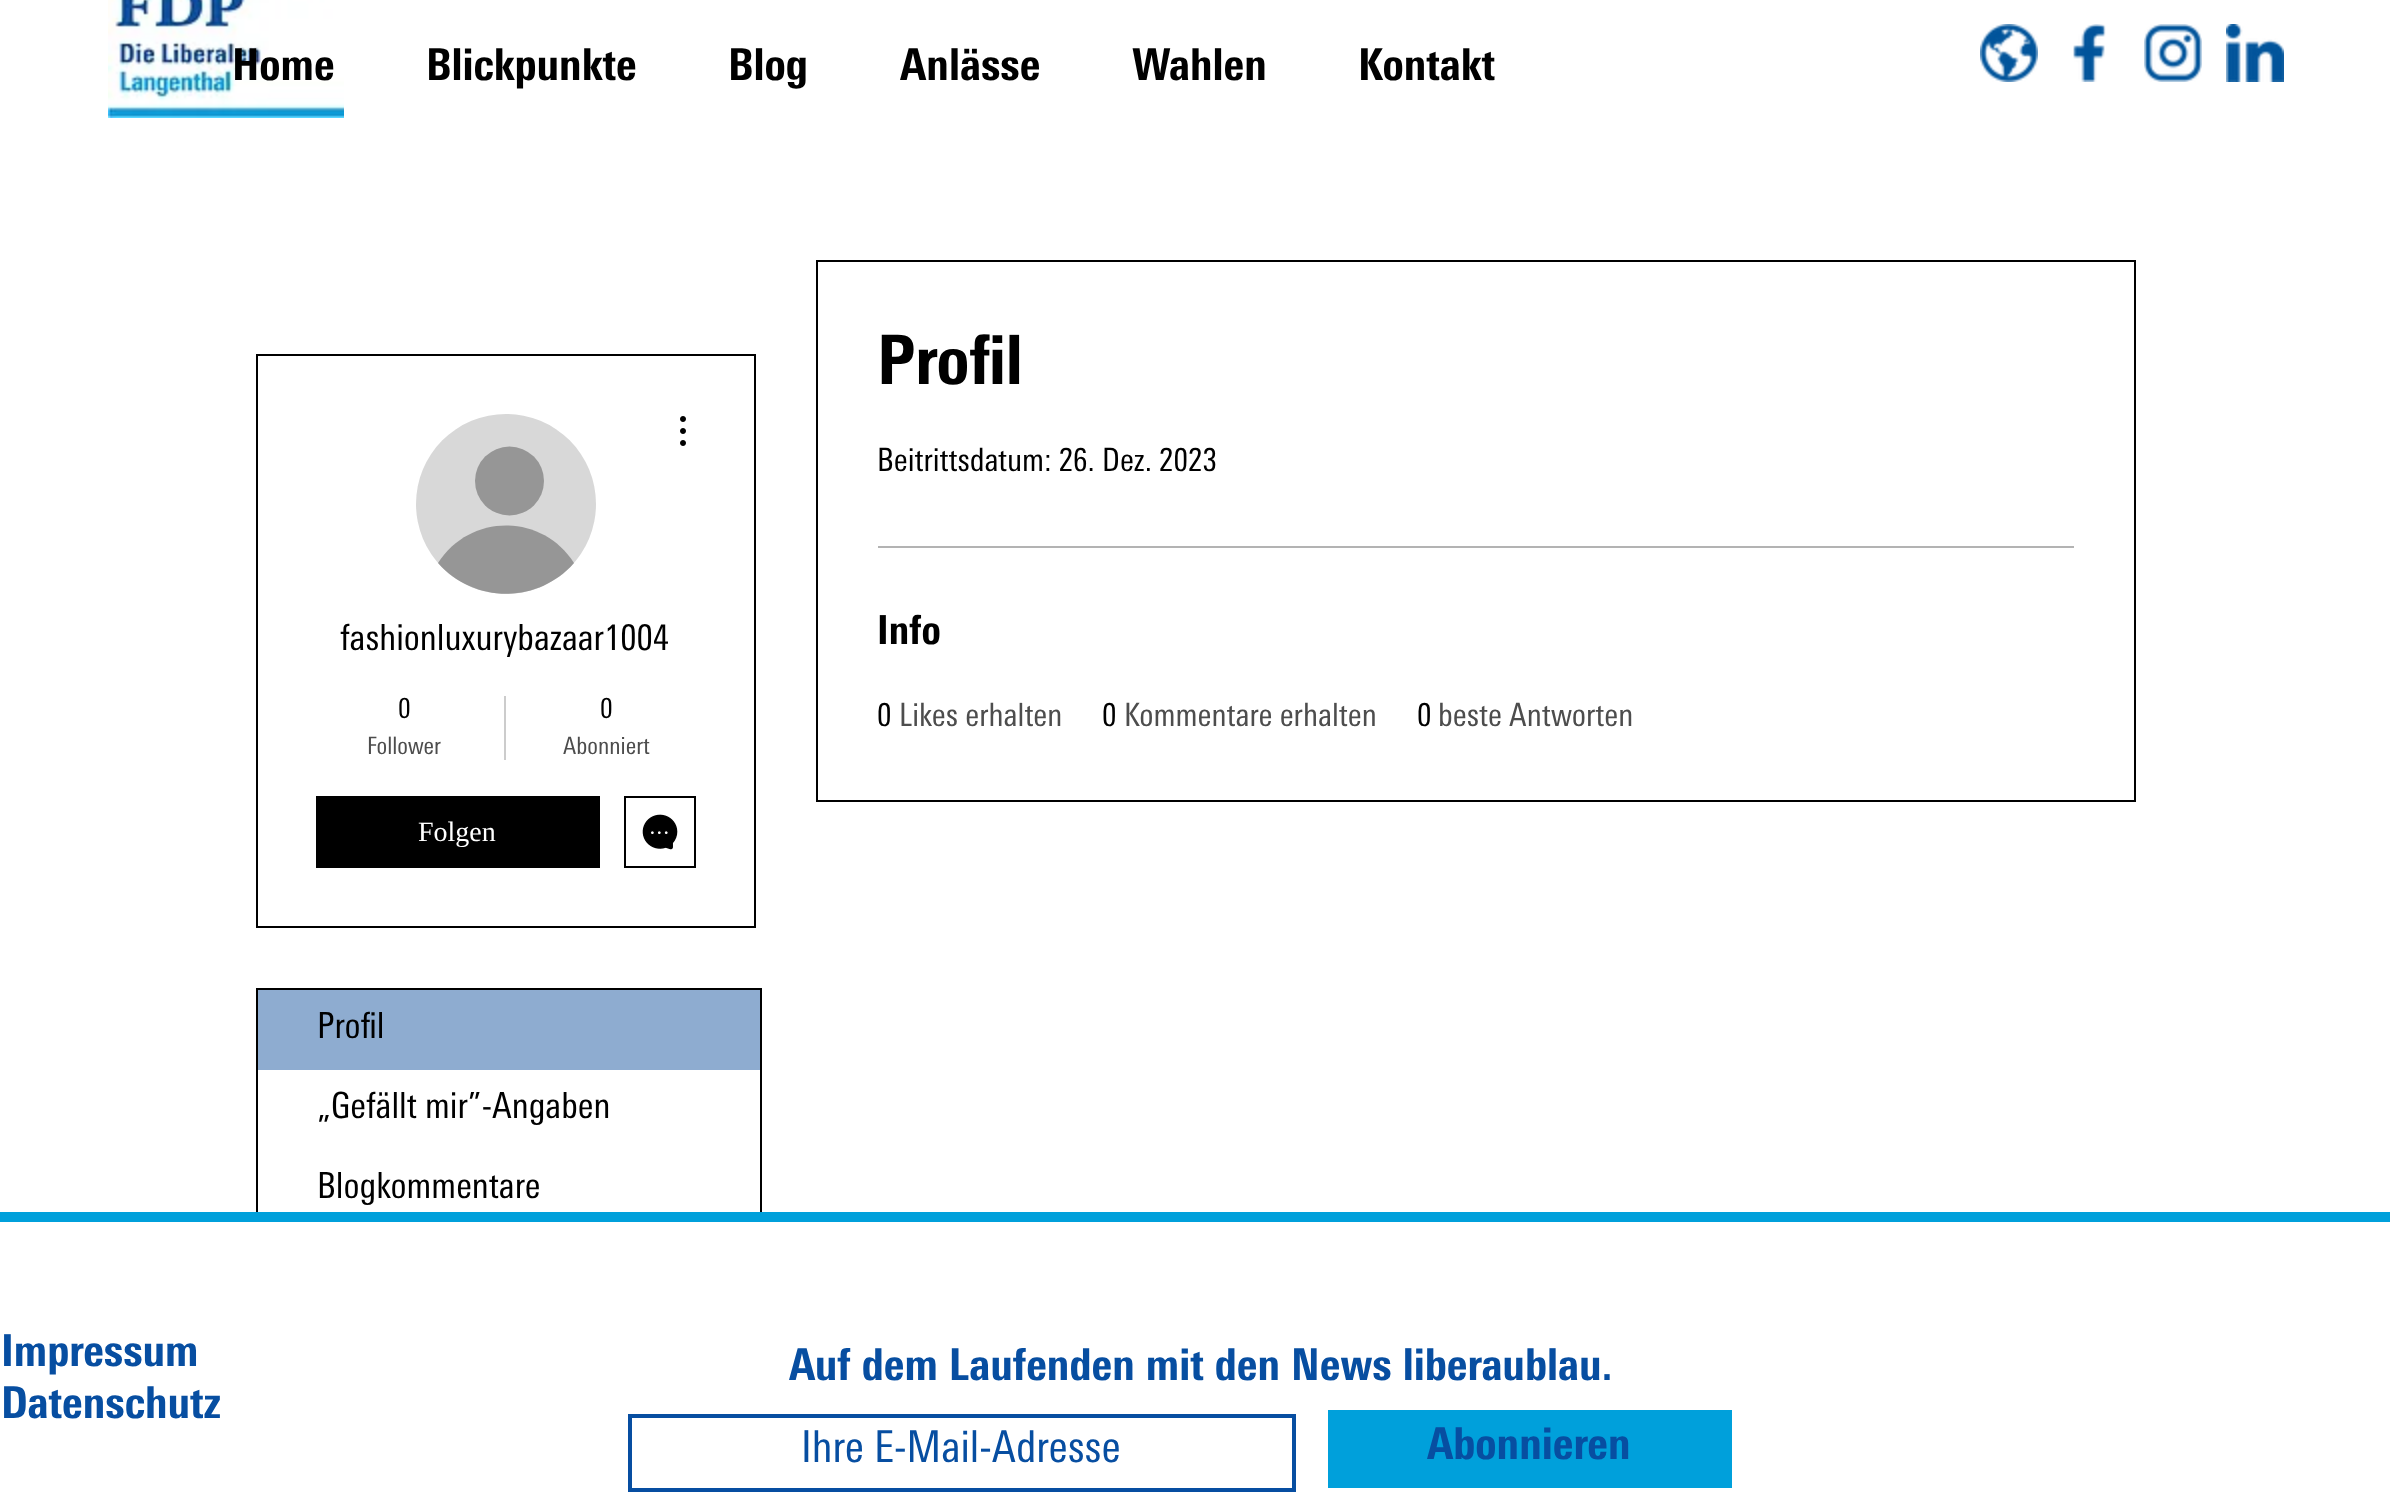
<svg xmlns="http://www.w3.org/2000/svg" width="2390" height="1512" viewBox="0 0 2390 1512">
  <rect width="100%" height="100%" fill="#fff"/>
  <image x="108" y="0" width="236" height="118" href="img/1.png"/>
  <image x="1980" y="24" width="58" height="58" href="img/2.png"/>
  <image x="2073" y="24" width="33" height="58" href="img/3.png"/>
  <image x="2144" y="24" width="58" height="58" href="img/4.png"/>
  <image x="2226" y="24" width="58" height="58" href="img/5.png"/>
  <path d="M817 261h1318v540H817z" fill="none" stroke="#000" stroke-width="2"/>
  <path d="M878 546h1196v2H878z" fill="#b3b3b3"/>
  <path d="M257 355h498v572H257z" fill="none" stroke="#000" stroke-width="2"/>
  <circle cx="506" cy="504" r="90" fill="#d8d8d8"/>
  <circle cx="509.5" cy="481" r="34.5" fill="#969696"/>
  <path d="M574 563C538 604 474 604 438 563C470 513 542 513 574 563Z" fill="#969696"/>
  <image x="680" y="416" width="6" height="30" href="img/6.png"/>
  <path d="M504 696h2v64H504z" fill="#ccc"/>
  <path d="M316 796h284v72H316z" fill="#000"/>
  <path d="M625 797h70v70H625z" fill="none" stroke="#000" stroke-width="2"/>
  <image x="642" y="814" width="36" height="36" href="img/7.png"/>
  <path d="M257 989h504v402H257z" fill="none" stroke="#000" stroke-width="2"/>
  <path d="M258 990h502v80H258z" fill="#8eacd0"/>
  <path d="M256 1222h506v170H256z" fill="#fff"/>
  <path d="M0 1212h2390v10H0z" fill="#00a0db"/>
  <path d="M630 1416h664v74H630z" fill="none" stroke="#074ea1" stroke-width="4"/>
  <path d="M1328 1410h404v78H1328z" fill="#00a0db"/>
  <g font-family="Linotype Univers" font-size="44" font-weight="900" fill="#000">
    <text x="232" y="80">Home</text>
    <text x="426" y="80">Blickpunkte</text>
    <text x="728" y="80">Blog</text>
    <text x="900" y="80">Anlässe</text>
    <text x="1132" y="80">Wahlen</text>
    <text x="1358" y="80">Kontakt</text>
  </g>
  <text x="877" y="384" font-family="Linotype Univers" font-size="68" font-weight="900" fill="#000">Profil</text>
  <text x="877" y="471" font-family="Linotype Univers" font-size="32" fill="#000">Beitrittsdatum: 26. Dez. 2023</text>
  <text x="877" y="644" font-family="Linotype Univers" font-size="40" font-weight="900" fill="#000">Info</text>
  <text x="877" y="726" font-family="Linotype Univers" font-size="32" fill="#000">0</text>
  <text x="899" y="726" font-family="Linotype Univers" font-size="32" fill="#4d4d4d">Likes erhalten</text>
  <text x="1102" y="726" font-family="Linotype Univers" font-size="32" fill="#000">0</text>
  <text x="1124" y="726" font-family="Linotype Univers" font-size="32" fill="#4d4d4d">Kommentare erhalten</text>
  <text x="1417" y="726" font-family="Linotype Univers" font-size="32" fill="#000">0</text>
  <text x="1438" y="726" font-family="Linotype Univers" font-size="32" fill="#4d4d4d">beste Antworten</text>
  <text x="340" y="650" font-family="Linotype Univers" font-size="36" fill="#000">fashionluxurybazaar1004</text>
  <text x="398" y="718" font-family="Linotype Univers" font-size="28" fill="#000">0</text>
  <text x="367" y="754" font-family="Linotype Univers" font-size="24" fill="#4d4d4d">Follower</text>
  <text x="600" y="718" font-family="Linotype Univers" font-size="28" fill="#000">0</text>
  <text x="563" y="754" font-family="Linotype Univers" font-size="24" fill="#4d4d4d">Abonniert</text>
  <text x="418" y="841" font-family="Liberation Serif" font-size="28" fill="#fff">Folgen</text>
  <g font-family="Linotype Univers" font-size="36" fill="#000">
    <text x="317" y="1038">Profil</text>
    <text x="317" y="1118">„Gefällt mir”-Angaben</text>
    <text x="317" y="1198">Blogkommentare</text>
  </g>
  <g font-family="Linotype Univers" font-size="44" font-weight="900" fill="#074ea1">
    <text x="1" y="1366">Impressum</text>
    <text x="1" y="1418">Datenschutz</text>
    <text x="789" y="1380">Auf dem Laufenden mit den News liberaublau.</text>
  </g>
  <text x="801" y="1462" font-family="Linotype Univers" font-size="44" fill="#074ea1">Ihre E-Mail-Adresse</text>
  <text x="1427" y="1459" font-family="Linotype Univers" font-size="44" font-weight="900" fill="#074ea1">Abonnieren</text>
</svg>
